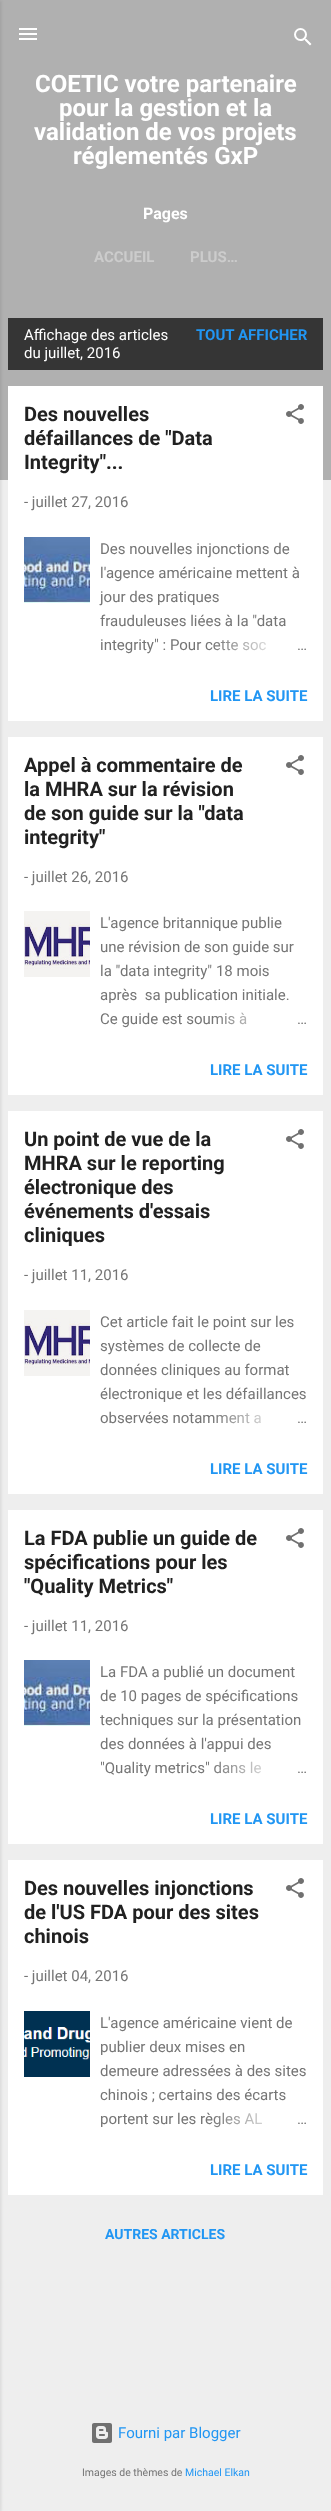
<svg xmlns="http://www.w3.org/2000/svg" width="331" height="2511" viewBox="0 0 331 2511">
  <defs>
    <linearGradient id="g1" gradientUnits="userSpaceOnUse" x1="307" y1="645" x2="211" y2="645"><stop offset="0" stop-color="#fff"/><stop offset="0.2" stop-color="#fff"/><stop offset="1" stop-color="#fff" stop-opacity="0"/></linearGradient>
    <linearGradient id="g2" gradientUnits="userSpaceOnUse" x1="307" y1="1019" x2="211" y2="1019"><stop offset="0" stop-color="#fff"/><stop offset="0.2" stop-color="#fff"/><stop offset="1" stop-color="#fff" stop-opacity="0"/></linearGradient>
    <linearGradient id="g3" gradientUnits="userSpaceOnUse" x1="307" y1="1418" x2="211" y2="1418"><stop offset="0" stop-color="#fff"/><stop offset="0.2" stop-color="#fff"/><stop offset="1" stop-color="#fff" stop-opacity="0"/></linearGradient>
    <linearGradient id="g4" gradientUnits="userSpaceOnUse" x1="307" y1="1768" x2="211" y2="1768"><stop offset="0" stop-color="#fff"/><stop offset="0.2" stop-color="#fff"/><stop offset="1" stop-color="#fff" stop-opacity="0"/></linearGradient>
    <linearGradient id="g5" gradientUnits="userSpaceOnUse" x1="307" y1="2119" x2="211" y2="2119"><stop offset="0" stop-color="#fff"/><stop offset="0.2" stop-color="#fff"/><stop offset="1" stop-color="#fff" stop-opacity="0"/></linearGradient>
  </defs>
  <rect width="100%" height="100%" fill="#eee"/>
  <path d="M0 0h331v480H0z" fill="#b0b0b0"/>
  <path d="M-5 1h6v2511H-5z" fill="#0000001a" filter="blur(1.5px)"/>
  <image x="19" y="28" width="18" height="12" href="img/1.png"/>
  <image x="294" y="28" width="18" height="18" href="img/2.png"/>
  <path d="M8 318h315v52H8z" fill="#353535"/>
  <path d="M8 386h315v335H8z" fill="#fff"/>
  <image x="286" y="404" width="18" height="20" href="img/3.png"/>
  <image x="24" y="537" width="66" height="66" href="img/4.png"/>
  <path d="M8 737h315v358H8z" fill="#fff"/>
  <image x="286" y="755" width="18" height="20" href="img/5.png"/>
  <image x="24" y="911" width="66" height="66" href="img/6.png"/>
  <path d="M8 1111h315v383H8z" fill="#fff"/>
  <image x="286" y="1129" width="18" height="20" href="img/3.png"/>
  <image x="24" y="1310" width="66" height="66" href="img/6.png"/>
  <path d="M8 1510h315v334H8z" fill="#fff"/>
  <image x="286" y="1528" width="18" height="20" href="img/3.png"/>
  <image x="24" y="1660" width="66" height="66" href="img/7.png"/>
  <path d="M8 1860h315v335H8z" fill="#fff"/>
  <image x="286" y="1878" width="18" height="20" href="img/3.png"/>
  <image x="24" y="2011" width="66" height="66" href="img/8.png"/>
  <image x="92" y="2423" width="20" height="20" href="img/9.png"/>
  <g font-family="Roboto" font-size="24" font-weight="bold" fill="#fff">
    <text x="35" y="92">COETIC votre partenaire</text>
    <text x="59" y="116">pour la gestion et la</text>
    <text x="34" y="140">validation de vos projets</text>
    <text x="73" y="164">réglementés GxP</text>
  </g>
  <text x="143" y="219" font-family="Roboto" font-size="16" font-weight="bold" fill="#fff">Pages</text>
  <g font-family="Roboto" font-size="15" font-weight="bold" fill="#ccc">
    <text x="94" y="262">ACCUEIL</text>
    <text x="190" y="262">PLUS…</text>
  </g>
  <g font-family="Roboto" font-size="15" fill="#fff">
    <text x="24" y="340">Affichage des articles</text>
    <text x="24" y="358">du juillet, 2016</text>
  </g>
  <text x="196" y="340" font-family="Roboto" font-size="15" font-weight="bold" fill="#2196f3">TOUT AFFICHER</text>
  <g font-family="Roboto" font-size="20" font-weight="bold" fill="#212121">
    <text x="24" y="421">Des nouvelles</text>
    <text x="24" y="445">défaillances de "Data</text>
    <text x="24" y="469">Integrity"...</text>
  </g>
  <g font-family="Roboto" font-size="15" fill="#757575">
    <text x="24" y="507">- juillet 27, 2016</text>
    <text x="100" y="554">Des nouvelles injonctions de</text>
    <text x="100" y="578">l'agence américaine mettent à</text>
    <text x="100" y="602">jour des pratiques</text>
    <text x="100" y="626">frauduleuses liées à la "data</text>
    <text x="100" y="650">integrity" : Pour cette soc</text>
  </g>
  <path d="M214 640h52v11H214z" fill="url(#g1)"/>
  <text x="297" y="650" font-family="Roboto" font-size="15" fill="#757575">…</text>
  <text x="210" y="701" font-family="Roboto" font-size="15" font-weight="bold" fill="#2196f3">LIRE LA SUITE</text>
  <g font-family="Roboto" font-size="20" font-weight="bold" fill="#212121">
    <text x="24" y="772">Appel à commentaire de</text>
    <text x="24" y="796">la MHRA sur la révision</text>
    <text x="24" y="820">de son guide sur la "data</text>
    <text x="24" y="844">integrity"</text>
  </g>
  <g font-family="Roboto" font-size="15" fill="#757575">
    <text x="24" y="882">- juillet 26, 2016</text>
    <text x="100" y="928">L'agence britannique publie</text>
    <text x="100" y="952">une révision de son guide sur</text>
    <text x="100" y="976">la "data integrity" 18 mois</text>
    <text x="100" y="1000" xml:space="preserve">après  sa publication initiale.</text>
    <text x="100" y="1024">Ce guide est soumis à</text>
  </g>
  <path d="M213 1012h34v13H213z" fill="url(#g2)"/>
  <text x="297" y="1024" font-family="Roboto" font-size="15" fill="#757575">…</text>
  <text x="210" y="1075" font-family="Roboto" font-size="15" font-weight="bold" fill="#2196f3">LIRE LA SUITE</text>
  <g font-family="Roboto" font-size="20" font-weight="bold" fill="#212121">
    <text x="24" y="1146">Un point de vue de la</text>
    <text x="24" y="1170">MHRA sur le reporting</text>
    <text x="24" y="1194">électronique des</text>
    <text x="24" y="1218">événements d'essais</text>
    <text x="24" y="1242">cliniques</text>
  </g>
  <g font-family="Roboto" font-size="15" fill="#757575">
    <text x="24" y="1280">- juillet 11, 2016</text>
    <text x="100" y="1327">Cet article fait le point sur les</text>
    <text x="100" y="1351">systèmes de collecte de</text>
    <text x="100" y="1375">données cliniques au format</text>
    <text x="100" y="1399">électronique et les défaillances</text>
    <text x="100" y="1423">observées notamment a</text>
  </g>
  <path d="M213 1413h48v11H213z" fill="url(#g3)"/>
  <text x="297" y="1423" font-family="Roboto" font-size="15" fill="#757575">…</text>
  <text x="210" y="1474" font-family="Roboto" font-size="15" font-weight="bold" fill="#2196f3">LIRE LA SUITE</text>
  <g font-family="Roboto" font-size="20" font-weight="bold" fill="#212121">
    <text x="24" y="1545">La FDA publie un guide de</text>
    <text x="24" y="1569">spécifications pour les</text>
    <text x="24" y="1593">"Quality Metrics"</text>
  </g>
  <g font-family="Roboto" font-size="15" fill="#757575">
    <text x="24" y="1631">- juillet 11, 2016</text>
    <text x="100" y="1677">La FDA a publié un document</text>
    <text x="100" y="1701">de 10 pages de spécifications</text>
    <text x="100" y="1725">techniques sur la présentation</text>
    <text x="100" y="1749">des données à l'appui des</text>
    <text x="100" y="1773">"Quality metrics" dans le</text>
  </g>
  <path d="M214 1761h47v13H214z" fill="url(#g4)"/>
  <text x="297" y="1773" font-family="Roboto" font-size="15" fill="#757575">…</text>
  <text x="210" y="1824" font-family="Roboto" font-size="15" font-weight="bold" fill="#2196f3">LIRE LA SUITE</text>
  <g font-family="Roboto" font-size="20" font-weight="bold" fill="#212121">
    <text x="24" y="1895">Des nouvelles injonctions</text>
    <text x="24" y="1919">de l'US FDA pour des sites</text>
    <text x="24" y="1943">chinois</text>
  </g>
  <g font-family="Roboto" font-size="15" fill="#757575">
    <text x="24" y="1981">- juillet 04, 2016</text>
    <text x="100" y="2028">L'agence américaine vient de</text>
    <text x="100" y="2052">publier deux mises en</text>
    <text x="100" y="2076">demeure adressées à des sites</text>
    <text x="100" y="2100">chinois ; certains des écarts</text>
    <text x="100" y="2124">portent sur les règles AL</text>
  </g>
  <path d="M214 2112h49v15H214z" fill="url(#g5)"/>
  <text x="297" y="2124" font-family="Roboto" font-size="15" fill="#757575">…</text>
  <text x="210" y="2175" font-family="Roboto" font-size="15" font-weight="bold" fill="#2196f3">LIRE LA SUITE</text>
  <text x="105" y="2239" font-family="Roboto" font-size="14" font-weight="bold" fill="#2196f3">AUTRES ARTICLES</text>
  <text x="118" y="2438" font-family="Roboto" font-size="15" fill="#2196f3">Fourni par Blogger</text>
  <text x="82" y="2476" font-family="Roboto" font-size="10.5" fill="#757575">Images de thèmes de</text>
  <text x="185" y="2476" font-family="Roboto" font-size="10.5" fill="#2196f3">Michael Elkan</text>
</svg>
